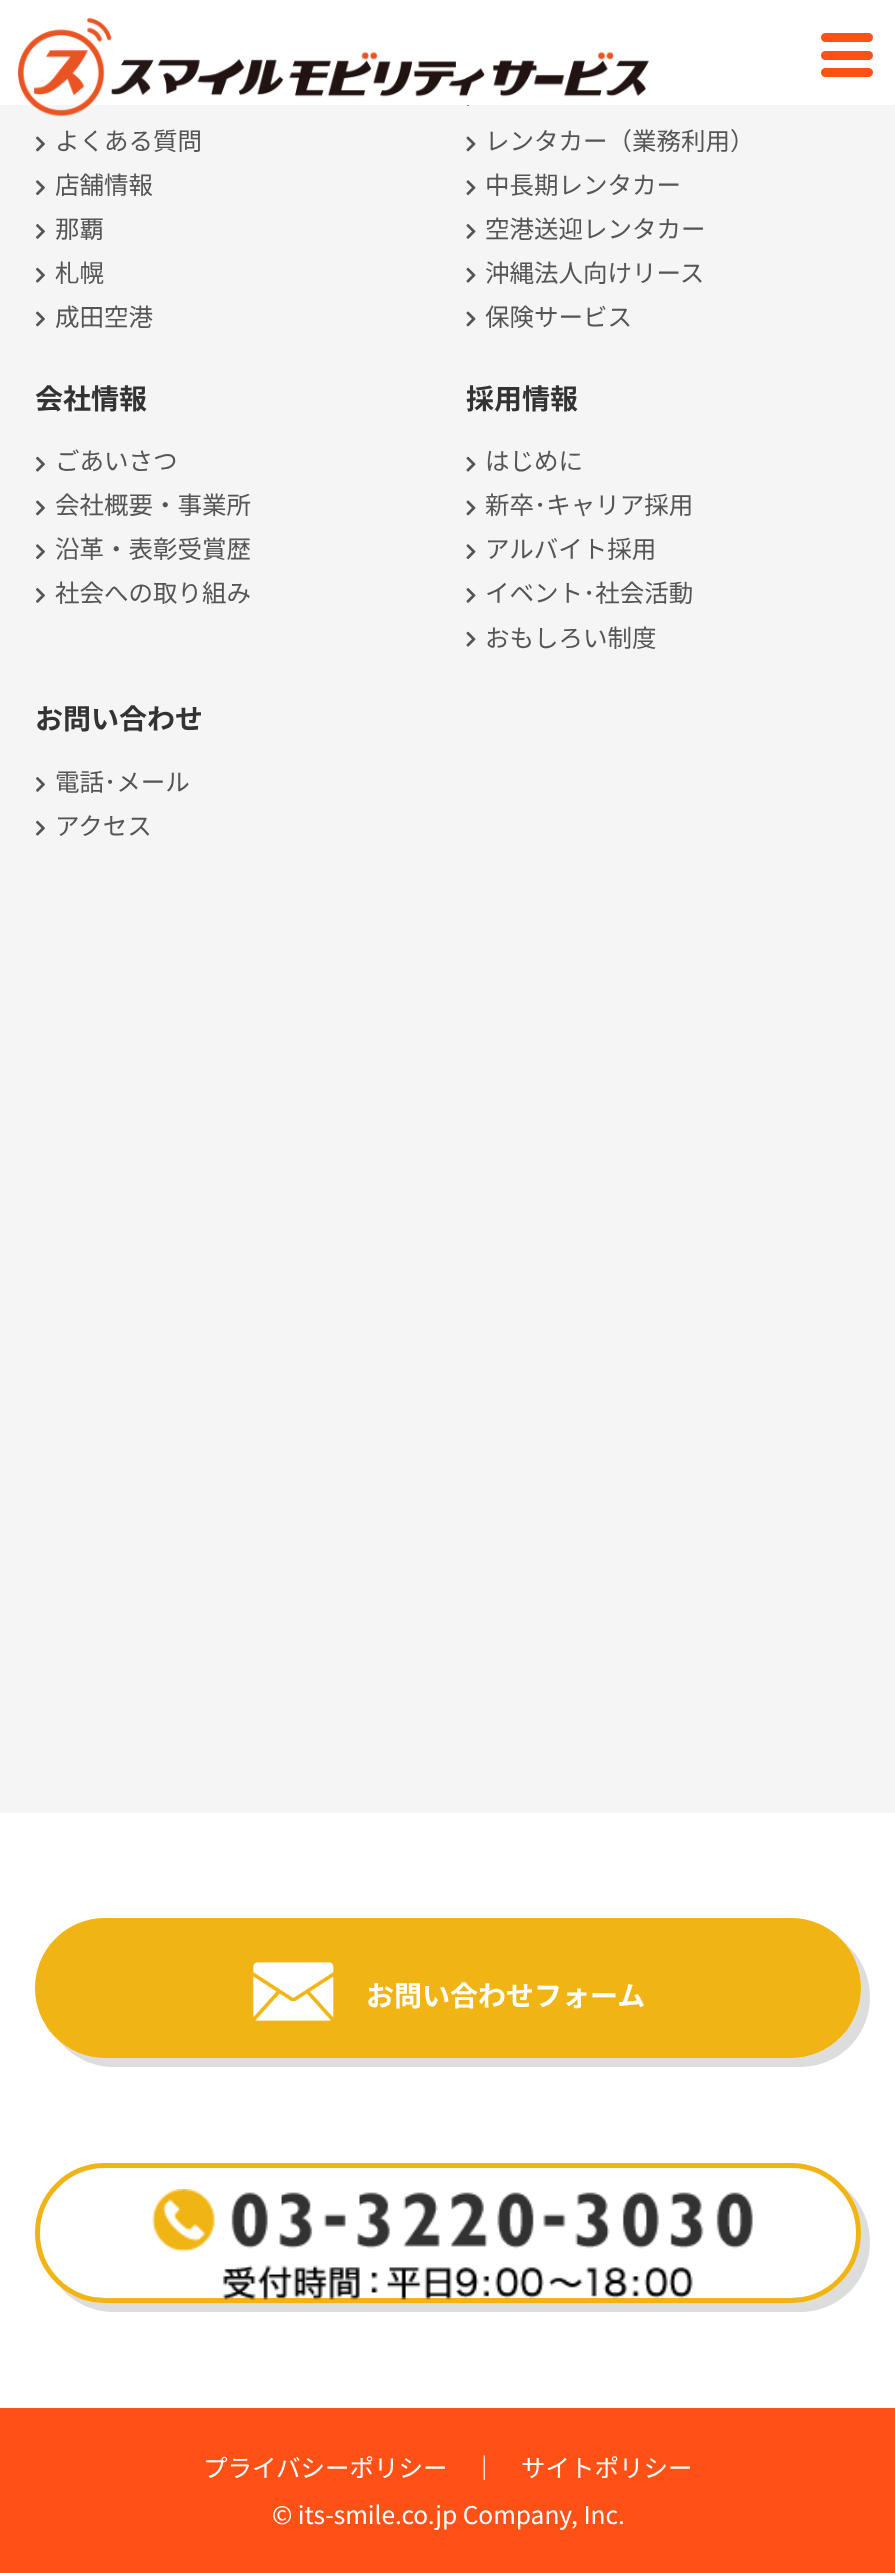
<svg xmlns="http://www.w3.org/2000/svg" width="895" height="2573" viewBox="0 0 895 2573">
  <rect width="100%" height="100%" fill="#fff"/>
  <path d="M0 105h895v1708H0z" fill="#f5f5f5"/>
  <image x="467" y="105" width="3" height="1" href="img/6.png"/>
  <image x="18" y="18" width="631" height="99" href="img/1.png"/>
  <rect x="821" y="33" width="52" height="9" rx="4.5" fill="#ff5016"/>
  <rect x="821" y="51" width="52" height="9" rx="4.5" fill="#ff5016"/>
  <rect x="821" y="68" width="52" height="9" rx="4.5" fill="#ff5016"/>
  <image x="36" y="136" width="9" height="16" href="img/2.png"/>
  <image x="36" y="180" width="9" height="16" href="img/3.png"/>
  <image x="36" y="224" width="9" height="15" href="img/4.png"/>
  <image x="36" y="267" width="9" height="16" href="img/5.png"/>
  <image x="36" y="311" width="9" height="16" href="img/2.png"/>
  <image x="466" y="136" width="10" height="16" href="img/7.png"/>
  <image x="466" y="180" width="10" height="16" href="img/8.png"/>
  <image x="466" y="224" width="10" height="15" href="img/9.png"/>
  <image x="466" y="267" width="10" height="16" href="img/10.png"/>
  <image x="466" y="311" width="10" height="16" href="img/7.png"/>
  <image x="36" y="456" width="9" height="16" href="img/5.png"/>
  <image x="36" y="500" width="9" height="16" href="img/2.png"/>
  <image x="36" y="544" width="9" height="16" href="img/3.png"/>
  <image x="36" y="588" width="9" height="15" href="img/4.png"/>
  <image x="466" y="456" width="10" height="16" href="img/10.png"/>
  <image x="466" y="500" width="10" height="16" href="img/7.png"/>
  <image x="466" y="544" width="10" height="16" href="img/8.png"/>
  <image x="466" y="588" width="10" height="15" href="img/9.png"/>
  <image x="466" y="631" width="10" height="16" href="img/10.png"/>
  <image x="36" y="777" width="9" height="15" href="img/4.png"/>
  <image x="36" y="820" width="9" height="16" href="img/5.png"/>
  <path d="M60 2042C73 2057 92 2067 114 2067H800C839 2067 870 2036 870 1997C870 1975 860 1956 845 1943C855 1955 861 1971 861 1988C861 2027 830 2058 791 2058H105C88 2058 72 2052 60 2042Z" fill="#ddd"/>
  <rect x="35" y="1918" width="826" height="140" rx="70" fill="#f0b414"/>
  <image x="252" y="1962" width="82" height="60" href="img/11.png"/>
  <path d="M60 2287C73 2302 92 2312 114 2312H800C839 2312 870 2281 870 2242C870 2220 860 2201 845 2188C855 2200 861 2216 861 2233C861 2272 830 2303 791 2303H105C88 2303 72 2297 60 2287Z" fill="#ddd"/>
  <rect x="37.5" y="2165.5" width="821" height="135" rx="67.5" fill="#fff" stroke="#f0b414" stroke-width="5"/>
  <image x="152" y="2189" width="601" height="111" href="img/12.png"/>
  <path d="M0 2408h895v165H0z" fill="#ff5016"/>
  <g font-family="Noto Sans JP" font-size="24.5" fill="#555">
    <text x="55" y="150">よくある質問</text>
    <text x="55" y="194">店舗情報</text>
    <text x="55" y="238">那覇</text>
    <text x="55" y="282">札幌</text>
    <text x="55" y="326">成田空港</text>
    <text x="485" y="150">レンタカー（業務利用）</text>
    <text x="485" y="194">中長期レンタカー</text>
    <text x="485" y="238">空港送迎レンタカー</text>
    <text x="485" y="282">沖縄法人向けリース</text>
    <text x="485" y="326">保険サービス</text>
  </g>
  <text x="35" y="409" font-family="Noto Sans JP" font-size="28" font-weight="bold" fill="#333">会社情報</text>
  <g font-family="Noto Sans JP" font-size="24.5" fill="#555">
    <text x="55" y="470">ごあいさつ</text>
    <text x="55" y="514">会社概要・事業所</text>
    <text x="55" y="558">沿革・表彰受賞歴</text>
    <text x="55" y="602">社会への取り組み</text>
  </g>
  <text x="466" y="409" font-family="Noto Sans JP" font-size="28" font-weight="bold" fill="#333">採用情報</text>
  <g font-family="Noto Sans JP" font-size="24.5" fill="#555">
    <text x="485" y="470">はじめに</text>
    <text x="485" y="514">新卒･キャリア採用</text>
    <text x="485" y="558">アルバイト採用</text>
    <text x="485" y="602">イベント･社会活動</text>
    <text x="485" y="647">おもしろい制度</text>
  </g>
  <text x="35" y="729" font-family="Noto Sans JP" font-size="28" font-weight="bold" fill="#333">お問い合わせ</text>
  <g font-family="Noto Sans JP" font-size="24.5" fill="#555">
    <text x="55" y="791">電話･メール</text>
    <text x="55" y="835">アクセス</text>
  </g>
  <text x="366" y="2006" font-family="Noto Sans JP" font-size="28" font-weight="bold" fill="#fff">お問い合わせフォーム</text>
  <g font-family="Noto Sans JP" font-size="24.5" fill="#fff">
    <text x="203" y="2477">プライバシーポリシー</text>
    <text x="472" y="2477">｜</text>
    <text x="521" y="2477">サイトポリシー</text>
    <text x="272" y="2524">© its-smile.co.jp Company, Inc.</text>
  </g>
</svg>
